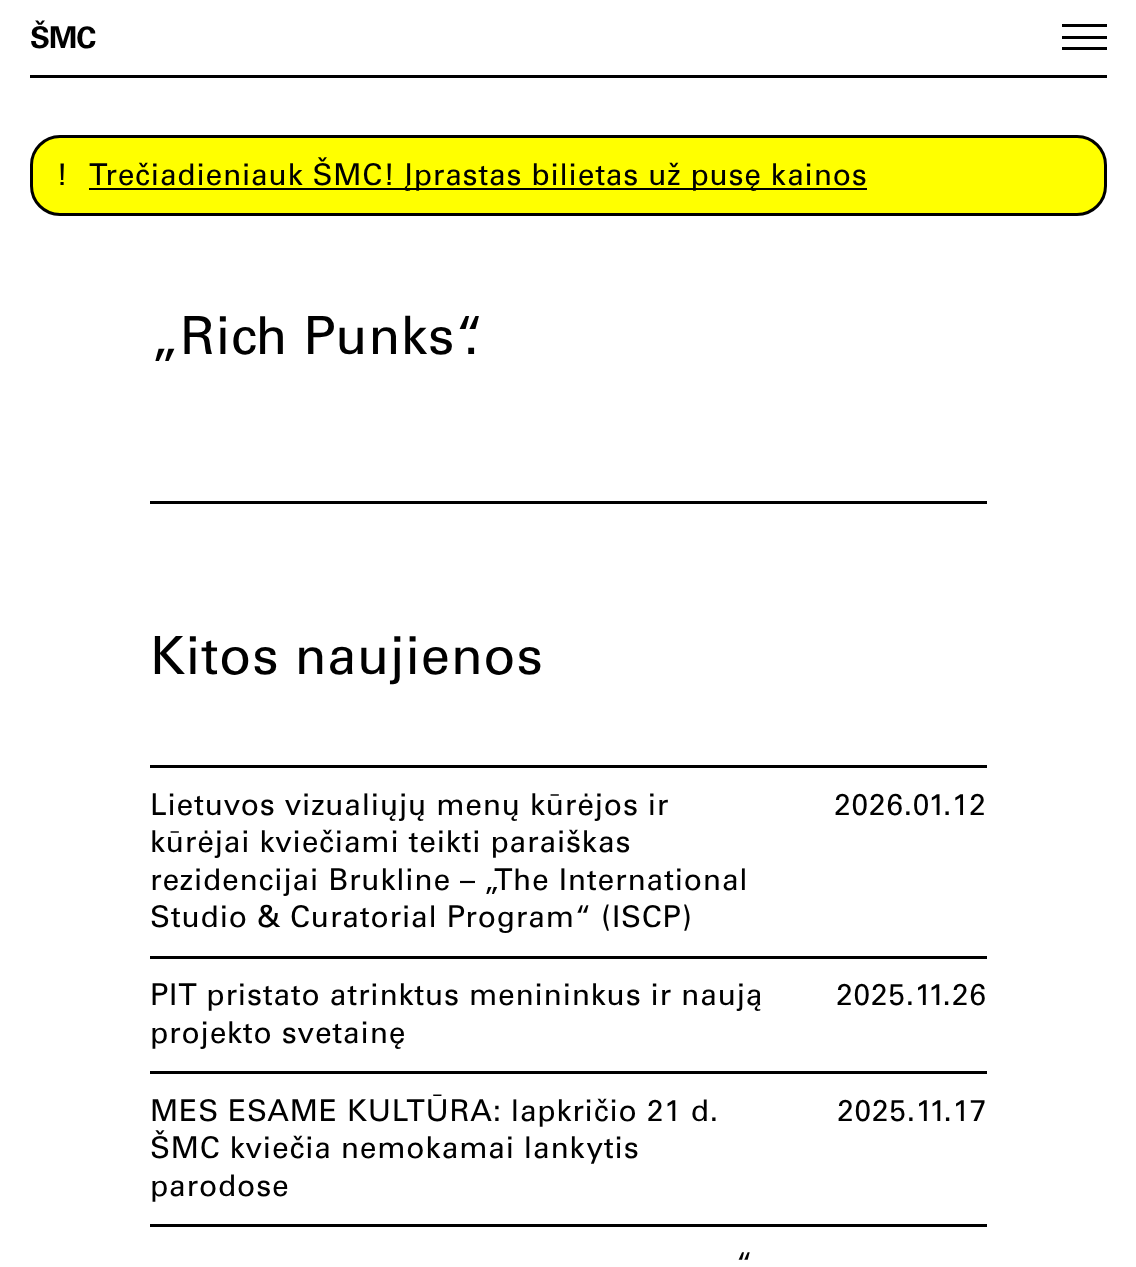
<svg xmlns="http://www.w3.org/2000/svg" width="1136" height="1267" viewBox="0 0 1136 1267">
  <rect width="100%" height="100%" fill="#fff"/>
  <path d="M30 75h1077v3H30z" fill="#000"/>
  <path d="M1062 24h45v3H1062z" fill="#000"/>
  <path d="M1062 36h45v3H1062z" fill="#000"/>
  <path d="M1062 47h45v3H1062z" fill="#000"/>
  <rect x="31.5" y="136.5" width="1074" height="78" rx="28.5" fill="#ff0" stroke="#000" stroke-width="3"/>
  <path d="M89 188h778v2H89z" fill="#000"/>
  <path d="M150 501h837v3H150z" fill="#000"/>
  <path d="M150 765h837v3H150z" fill="#000"/>
  <path d="M150 956h837v3H150z" fill="#000"/>
  <path d="M150 1071h837v3H150z" fill="#000"/>
  <path d="M150 1224h837v3H150z" fill="#000"/>
  <text x="30" y="48" font-family="Univers" font-size="30" font-weight="bold" letter-spacing="-1" fill="#000">ŠMC</text>
  <g font-family="Univers" font-size="30" letter-spacing="0.75" fill="#000">
    <text x="56" y="185">!</text>
    <text x="89" y="185">Trečiadieniauk ŠMC! Įprastas bilietas už pusę kainos</text>
  </g>
  <g font-family="Univers" font-size="52.5" letter-spacing="0.75" fill="#000">
    <text x="150" y="354">„Rich Punks“.</text>
    <text x="150" y="674">Kitos naujienos</text>
  </g>
  <g font-family="Univers" font-size="30" letter-spacing="0.75" fill="#000">
    <text x="150" y="815">Lietuvos vizualiųjų menų kūrėjos ir</text>
    <text x="150" y="852">kūrėjai kviečiami teikti paraiškas</text>
    <text x="150" y="890">rezidencijai Brukline – „The International</text>
    <text x="150" y="927">Studio &amp; Curatorial Program“ (ISCP)</text>
    <text x="834" y="815">2026.01.12</text>
    <text x="150" y="1005">PIT pristato atrinktus menininkus ir naują</text>
    <text x="150" y="1043">projekto svetainę</text>
    <text x="836" y="1005">2025.11.26</text>
    <text x="150" y="1121">MES ESAME KULTŪRA: lapkričio 21 d.</text>
    <text x="150" y="1158">ŠMC kviečia nemokamai lankytis</text>
    <text x="150" y="1196">parodose</text>
    <text x="837" y="1121">2025.11.17</text>
    <text x="736" y="1274">“</text>
  </g>
</svg>
